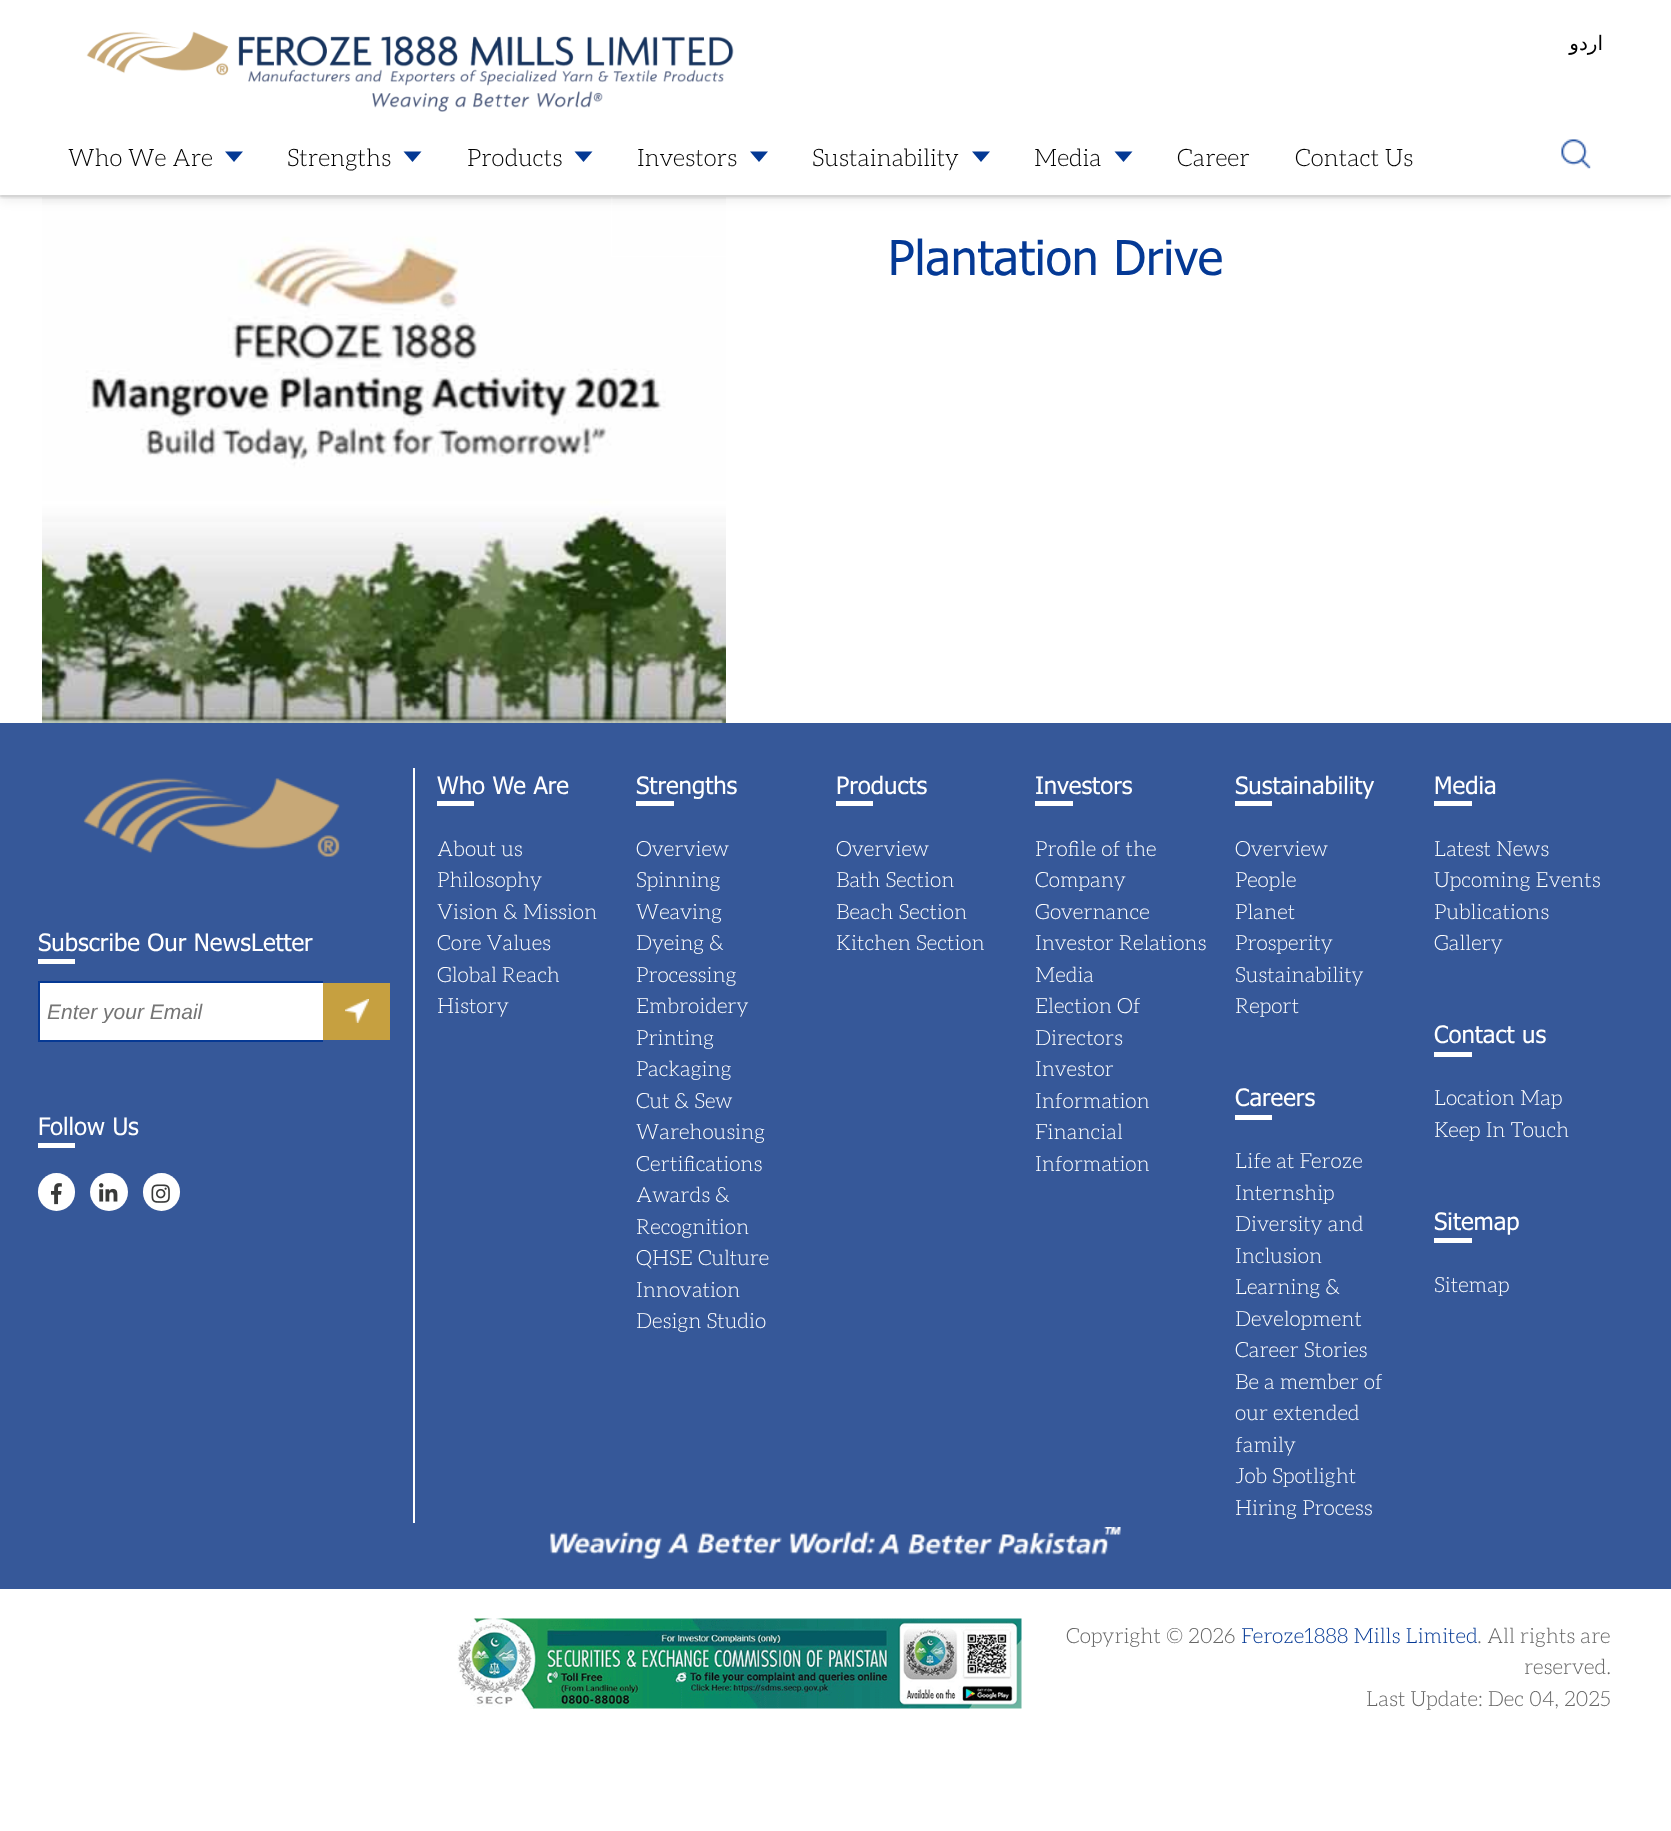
<svg xmlns="http://www.w3.org/2000/svg" width="1671" height="1831" viewBox="0 0 1671 1831">
  <defs>
    <clipPath id="clip1"><path d="M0 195h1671v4H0z"/></clipPath>
    <clipPath id="clip2"><path d="M47 999h273v24H47z"/></clipPath>
  </defs>
  <rect width="100%" height="100%" fill="#fff"/>
  <image x="42" y="197" width="684" height="526" href="img/3.png"/>
  <path d="M611.75 194.75h154.5v61.5H611.75z" fill="none" stroke="#ffffff80" stroke-width="1.5"/>
  <path d="M0 3h1671v197H0z" fill="#00000014" filter="blur(6px)"/>
  <path d="M0 0h1671v195H0z" fill="#fff"/>
  <path d="M0 195h1671v2H0z" fill="#ebebeb"/>
  <g clip-path="url(#clip1)">
    <path d="M0 3h1671v195H0z" fill="#0000001a" filter="blur(1.5px)"/>
  </g>
  <image x="86" y="31" width="648" height="81" href="img/1.png"/>
  <path d="M225 151.5H243L234 162Z" fill="#043994"/>
  <path d="M403.5 151.5H421.5L412.5 162Z" fill="#043994"/>
  <path d="M574.5 151.5H592.5L583.5 162Z" fill="#043994"/>
  <path d="M750 151.5H768L759 162Z" fill="#043994"/>
  <path d="M972 151.5H990L981 162Z" fill="#043994"/>
  <path d="M1114.5 151.5H1132.5L1123.5 162Z" fill="#043994"/>
  <image x="1561" y="139" width="30" height="30" href="img/2.png"/>
  <path d="M0 723h1671v866H0z" fill="#365899"/>
  <path d="M413 768h2v755H413z" fill="#fff"/>
  <image x="83" y="778" width="257" height="79" href="img/4.png"/>
  <path d="M38 959h37v5H38z" fill="#fff"/>
  <path d="M40 983h283v57H40z" fill="#fff"/>
  <path d="M38 981h285v2H38z" fill="#063994"/>
  <path d="M38 1040h285v2H38z" fill="#063994"/>
  <path d="M38 981h2v60H38z" fill="#063994"/>
  <path d="M323 983h67v57H323z" fill="#c6a040"/>
  <image x="345" y="999" width="24" height="24" href="img/5.png"/>
  <path d="M38 1143h37v5H38z" fill="#fff"/>
  <rect x="38" y="1173" width="37" height="38" rx="18.5" fill="#fff"/>
  <image x="51" y="1183" width="11" height="22" href="img/6.png"/>
  <circle cx="109" cy="1192" r="19" fill="#fff"/>
  <image x="99" y="1183" width="19" height="19" href="img/7.png"/>
  <rect x="143" y="1173" width="37" height="38" rx="18.5" fill="#fff"/>
  <image x="151" y="1184" width="19" height="19" href="img/8.png"/>
  <path d="M437 801h37v5H437z" fill="#fff"/>
  <path d="M636 801h38v5H636z" fill="#fff"/>
  <path d="M836 801h37v5H836z" fill="#fff"/>
  <path d="M1035 801h38v5H1035z" fill="#fff"/>
  <path d="M1235 801h37v5H1235z" fill="#fff"/>
  <path d="M1235 1115h37v5H1235z" fill="#fff"/>
  <path d="M1434 801h38v5H1434z" fill="#fff"/>
  <path d="M1434 1052h38v5H1434z" fill="#fff"/>
  <path d="M1434 1238h38v5H1434z" fill="#fff"/>
  <image x="550" y="1527" width="571" height="32" href="img/9.png"/>
  <image x="457" y="1618" width="565" height="91" href="img/10.png"/>
  <text x="1603" y="50" font-family="DejaVu Sans" font-size="20" direction="rtl" fill="#000">اردو</text>
  <g font-family="Aleo" font-size="24" font-weight="300" fill="#000">
    <text x="68" y="166">Who We Are</text>
    <text x="287" y="166">Strengths</text>
    <text x="467" y="166">Products</text>
    <text x="637" y="166">Investors</text>
    <text x="812" y="166">Sustainability</text>
    <text x="1034" y="166">Media</text>
    <text x="1177" y="166">Career</text>
    <text x="1295" y="166">Contact Us</text>
  </g>
  <text x="888" y="275" font-family="Tahoma" font-size="48" fill="#043995">Plantation Drive</text>
  <text x="38" y="951" font-family="Tahoma" font-size="24" fill="#fff">Subscribe Our NewsLetter</text>
  <g clip-path="url(#clip2)">
    <text x="47" y="1019" font-family="Liberation Sans" font-size="21" font-style="italic" fill="#757575">Enter your Email</text>
  </g>
  <g font-family="Tahoma" font-size="24" fill="#fff">
    <text x="38" y="1135">Follow Us</text>
    <text x="437" y="794">Who We Are</text>
  </g>
  <g font-family="Aleo" font-size="21" font-weight="300" fill="#fff">
    <text x="437" y="856">About us</text>
    <text x="437" y="887">Philosophy</text>
    <text x="437" y="919">Vision &amp; Mission</text>
    <text x="437" y="950">Core Values</text>
    <text x="437" y="982">Global Reach</text>
    <text x="437" y="1013">History</text>
  </g>
  <text x="636" y="794" font-family="Tahoma" font-size="24" fill="#fff">Strengths</text>
  <g font-family="Aleo" font-size="21" font-weight="300" fill="#fff">
    <text x="636" y="856">Overview</text>
    <text x="636" y="887">Spinning</text>
    <text x="636" y="919">Weaving</text>
    <text x="636" y="950">Dyeing &amp;</text>
    <text x="636" y="982">Processing</text>
    <text x="636" y="1013">Embroidery</text>
    <text x="636" y="1045">Printing</text>
    <text x="636" y="1076">Packaging</text>
    <text x="636" y="1108">Cut &amp; Sew</text>
    <text x="636" y="1139">Warehousing</text>
    <text x="636" y="1171">Certifications</text>
    <text x="636" y="1202">Awards &amp;</text>
    <text x="636" y="1234">Recognition</text>
    <text x="636" y="1265">QHSE Culture</text>
    <text x="636" y="1297">Innovation</text>
    <text x="636" y="1328">Design Studio</text>
  </g>
  <text x="836" y="794" font-family="Tahoma" font-size="24" fill="#fff">Products</text>
  <g font-family="Aleo" font-size="21" font-weight="300" fill="#fff">
    <text x="836" y="856">Overview</text>
    <text x="836" y="887">Bath Section</text>
    <text x="836" y="919">Beach Section</text>
    <text x="836" y="950">Kitchen Section</text>
  </g>
  <text x="1035" y="794" font-family="Tahoma" font-size="24" fill="#fff">Investors</text>
  <g font-family="Aleo" font-size="21" font-weight="300" fill="#fff">
    <text x="1035" y="856">Profile of the</text>
    <text x="1035" y="887">Company</text>
    <text x="1035" y="919">Governance</text>
    <text x="1035" y="950">Investor Relations</text>
    <text x="1035" y="982">Media</text>
    <text x="1035" y="1013">Election Of</text>
    <text x="1035" y="1045">Directors</text>
    <text x="1035" y="1076">Investor</text>
    <text x="1035" y="1108">Information</text>
    <text x="1035" y="1139">Financial</text>
    <text x="1035" y="1171">Information</text>
  </g>
  <text x="1235" y="794" font-family="Tahoma" font-size="24" fill="#fff">Sustainability</text>
  <g font-family="Aleo" font-size="21" font-weight="300" fill="#fff">
    <text x="1235" y="856">Overview</text>
    <text x="1235" y="887">People</text>
    <text x="1235" y="919">Planet</text>
    <text x="1235" y="950">Prosperity</text>
    <text x="1235" y="982">Sustainability</text>
    <text x="1235" y="1013">Report</text>
  </g>
  <text x="1235" y="1106" font-family="Tahoma" font-size="24" fill="#fff">Careers</text>
  <g font-family="Aleo" font-size="21" font-weight="300" fill="#fff">
    <text x="1235" y="1168">Life at Feroze</text>
    <text x="1235" y="1200">Internship</text>
    <text x="1235" y="1231">Diversity and</text>
    <text x="1235" y="1263">Inclusion</text>
    <text x="1235" y="1294">Learning &amp;</text>
    <text x="1235" y="1326">Development</text>
    <text x="1235" y="1357">Career Stories</text>
    <text x="1235" y="1389">Be a member of</text>
    <text x="1235" y="1420">our extended</text>
    <text x="1235" y="1452">family</text>
    <text x="1235" y="1483">Job Spotlight</text>
    <text x="1235" y="1515">Hiring Process</text>
  </g>
  <text x="1434" y="794" font-family="Tahoma" font-size="24" fill="#fff">Media</text>
  <g font-family="Aleo" font-size="21" font-weight="300" fill="#fff">
    <text x="1434" y="856">Latest News</text>
    <text x="1434" y="887">Upcoming Events</text>
    <text x="1434" y="919">Publications</text>
    <text x="1434" y="950">Gallery</text>
  </g>
  <text x="1434" y="1043" font-family="Tahoma" font-size="24" fill="#fff">Contact us</text>
  <g font-family="Aleo" font-size="21" font-weight="300" fill="#fff">
    <text x="1434" y="1105">Location Map</text>
    <text x="1434" y="1137">Keep In Touch</text>
  </g>
  <text x="1434" y="1230" font-family="Tahoma" font-size="24" fill="#fff">Sitemap</text>
  <text x="1434" y="1292" font-family="Aleo" font-size="21" font-weight="300" fill="#fff">Sitemap</text>
  <text x="1066" y="1643" font-family="Aleo" font-size="21" font-weight="300" fill="#666">Copyright © 2026</text>
  <text x="1241" y="1643" font-family="Aleo" font-size="21" font-weight="300" fill="#043995">Feroze1888 Mills Limited</text>
  <g font-family="Aleo" font-size="21" font-weight="300" fill="#666">
    <text x="1477" y="1643">. All rights are</text>
    <text x="1524" y="1674">reserved.</text>
    <text x="1366" y="1706">Last Update: Dec 04, 2025</text>
  </g>
</svg>
